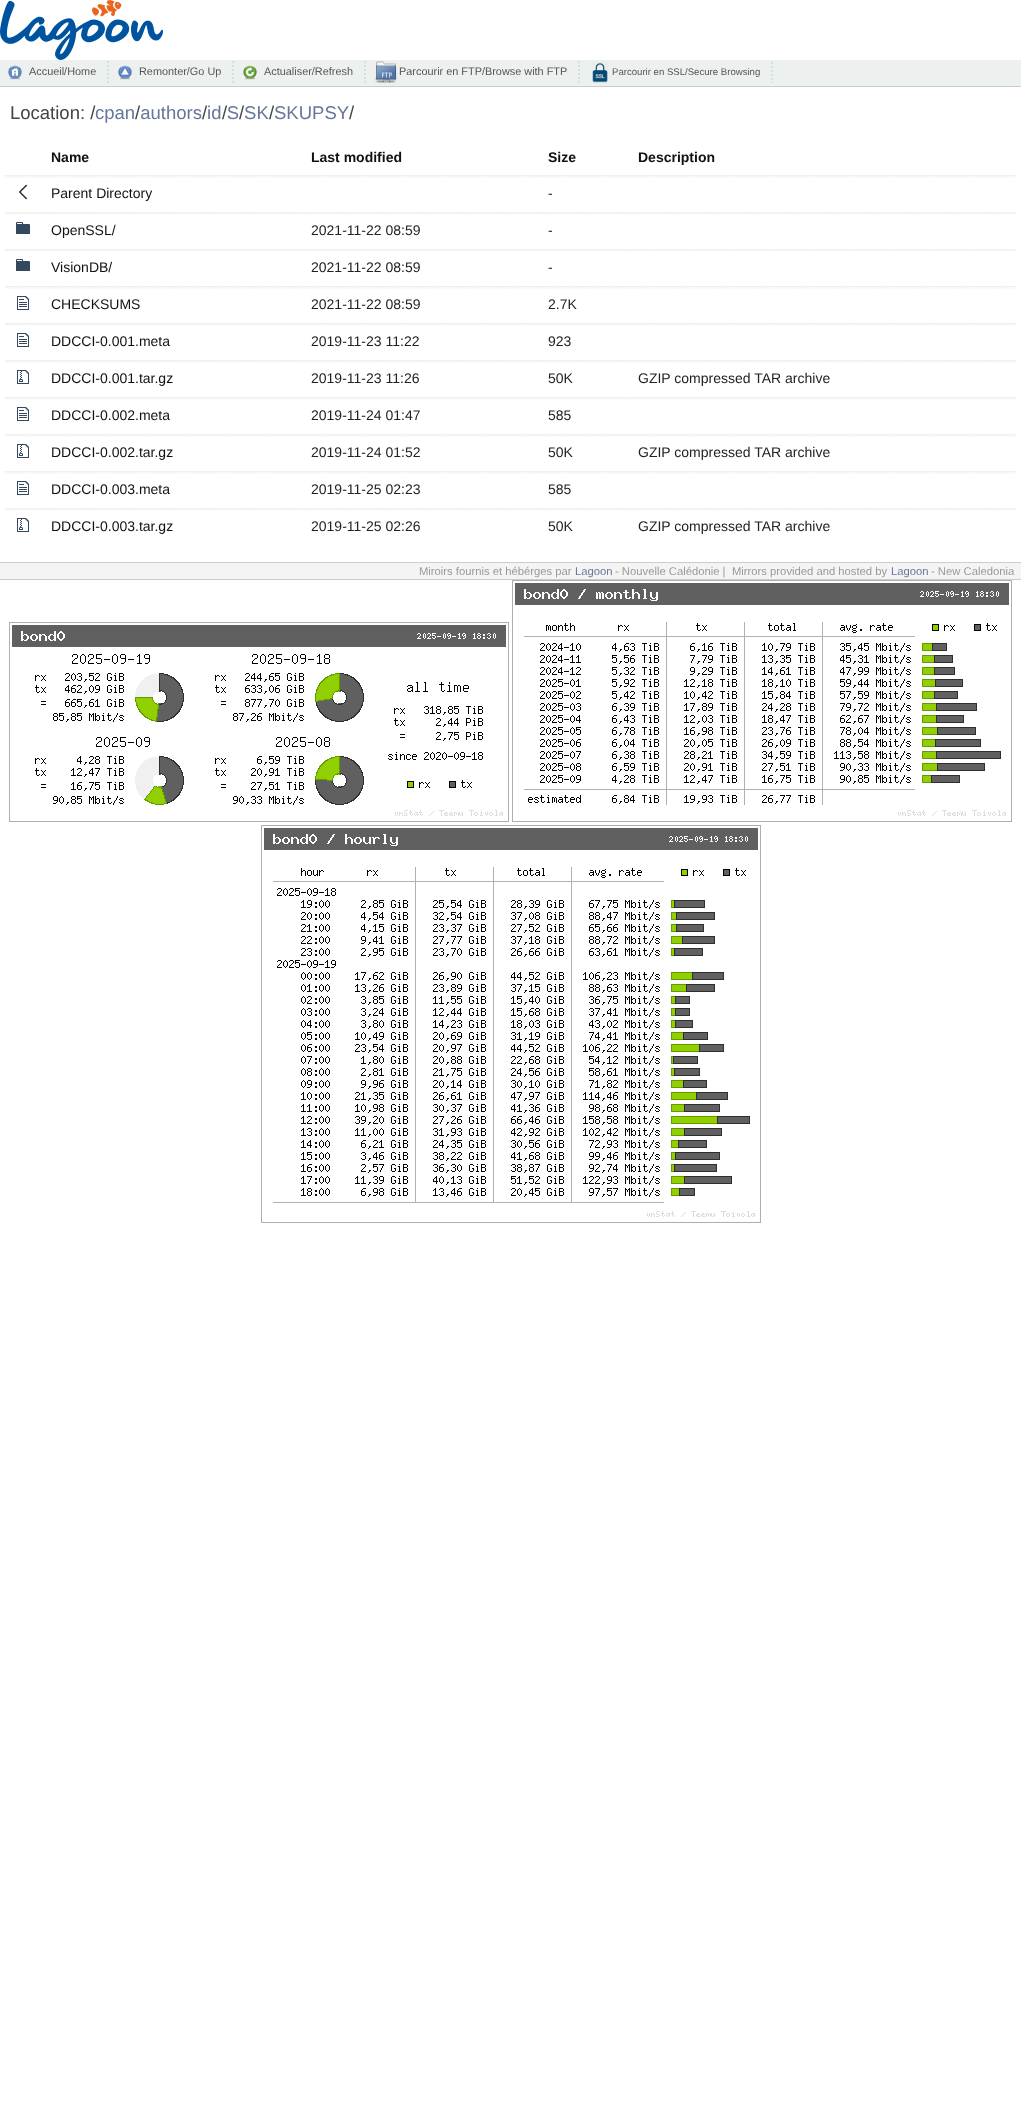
<svg xmlns="http://www.w3.org/2000/svg" width="1021" height="2101" viewBox="0 0 1021 2101">
  <rect width="100%" height="100%" fill="#fff"/>
  <image x="0" y="0" width="163" height="60" href="img/1.png"/>
  <path d="M0 60h1021v26H0z" fill="#ecf1ef"/>
  <path d="M0 86h1021v1H0z" fill="#ccc"/>
  <image x="8" y="65" width="14" height="15" href="img/2.png"/>
  <path d="M108 61V84" fill="none" stroke="#d5e0e0" stroke-width="2" stroke-dasharray="2 2"/>
  <image x="118" y="65" width="14" height="15" href="img/3.png"/>
  <path d="M233 61V84" fill="none" stroke="#d5e0e0" stroke-width="2" stroke-dasharray="2 2"/>
  <image x="243" y="65" width="14" height="15" href="img/4.png"/>
  <path d="M365 61V84" fill="none" stroke="#d5e0e0" stroke-width="2" stroke-dasharray="2 2"/>
  <image x="374" y="61" width="23" height="22" href="img/5.png"/>
  <path d="M579 61V84" fill="none" stroke="#d5e0e0" stroke-width="2" stroke-dasharray="2 2"/>
  <image x="592" y="62" width="16" height="21" href="img/6.png"/>
  <path d="M772 62V83" fill="none" stroke="#d5e0e0" stroke-width="2" stroke-dasharray="2 2"/>
  <image x="5" y="175" width="36" height="3" href="img/7.png"/>
  <image x="19" y="184" width="8" height="16" href="img/8.png"/>
  <image x="301" y="175" width="237" height="3" href="img/9.png"/>
  <image x="628" y="175" width="388" height="3" href="img/10.png"/>
  <image x="41" y="175" width="260" height="3" href="img/11.png"/>
  <image x="538" y="175" width="90" height="3" href="img/12.png"/>
  <image x="5" y="212" width="36" height="3" href="img/7.png"/>
  <image x="16" y="222" width="14" height="12" href="img/13.png"/>
  <image x="628" y="212" width="388" height="3" href="img/10.png"/>
  <image x="41" y="212" width="260" height="3" href="img/11.png"/>
  <image x="301" y="212" width="237" height="3" href="img/9.png"/>
  <image x="538" y="212" width="90" height="3" href="img/12.png"/>
  <image x="5" y="249" width="36" height="3" href="img/7.png"/>
  <image x="16" y="259" width="14" height="12" href="img/13.png"/>
  <image x="628" y="249" width="388" height="3" href="img/10.png"/>
  <image x="41" y="249" width="260" height="3" href="img/11.png"/>
  <image x="301" y="249" width="237" height="3" href="img/9.png"/>
  <image x="538" y="249" width="90" height="3" href="img/12.png"/>
  <image x="5" y="286" width="36" height="3" href="img/7.png"/>
  <image x="17" y="296" width="12" height="14" href="img/14.png"/>
  <image x="628" y="286" width="388" height="3" href="img/10.png"/>
  <image x="41" y="286" width="260" height="3" href="img/11.png"/>
  <image x="301" y="286" width="237" height="3" href="img/9.png"/>
  <image x="538" y="286" width="90" height="3" href="img/12.png"/>
  <image x="5" y="323" width="36" height="3" href="img/7.png"/>
  <image x="17" y="333" width="12" height="14" href="img/14.png"/>
  <image x="628" y="323" width="388" height="3" href="img/10.png"/>
  <image x="41" y="323" width="260" height="3" href="img/11.png"/>
  <image x="301" y="323" width="237" height="3" href="img/9.png"/>
  <image x="538" y="323" width="90" height="3" href="img/12.png"/>
  <image x="5" y="360" width="36" height="3" href="img/7.png"/>
  <image x="17" y="370" width="12" height="14" href="img/15.png"/>
  <image x="41" y="360" width="260" height="3" href="img/11.png"/>
  <image x="301" y="360" width="237" height="3" href="img/9.png"/>
  <image x="538" y="360" width="90" height="3" href="img/12.png"/>
  <image x="628" y="360" width="388" height="3" href="img/10.png"/>
  <image x="5" y="397" width="36" height="3" href="img/7.png"/>
  <image x="17" y="407" width="12" height="14" href="img/14.png"/>
  <image x="628" y="397" width="388" height="3" href="img/10.png"/>
  <image x="41" y="397" width="260" height="3" href="img/11.png"/>
  <image x="301" y="397" width="237" height="3" href="img/9.png"/>
  <image x="538" y="397" width="90" height="3" href="img/12.png"/>
  <image x="5" y="434" width="36" height="3" href="img/7.png"/>
  <image x="17" y="444" width="12" height="14" href="img/15.png"/>
  <image x="41" y="434" width="260" height="3" href="img/11.png"/>
  <image x="301" y="434" width="237" height="3" href="img/9.png"/>
  <image x="538" y="434" width="90" height="3" href="img/12.png"/>
  <image x="628" y="434" width="388" height="3" href="img/10.png"/>
  <image x="5" y="471" width="36" height="3" href="img/7.png"/>
  <image x="17" y="481" width="12" height="14" href="img/14.png"/>
  <image x="628" y="471" width="388" height="3" href="img/10.png"/>
  <image x="41" y="471" width="260" height="3" href="img/11.png"/>
  <image x="301" y="471" width="237" height="3" href="img/9.png"/>
  <image x="538" y="471" width="90" height="3" href="img/12.png"/>
  <image x="5" y="508" width="36" height="3" href="img/7.png"/>
  <image x="17" y="518" width="12" height="14" href="img/15.png"/>
  <image x="41" y="508" width="260" height="3" href="img/11.png"/>
  <image x="301" y="508" width="237" height="3" href="img/9.png"/>
  <image x="538" y="508" width="90" height="3" href="img/12.png"/>
  <image x="628" y="508" width="388" height="3" href="img/10.png"/>
  <path d="M0 563h1021v16H0z" fill="#f4f4f4"/>
  <path d="M0 562h1021v1H0z" fill="#ccc"/>
  <path d="M0 579h1021v1H0z" fill="#ccc"/>
  <image x="9" y="622" width="500" height="200" href="img/16.png"/>
  <image x="512" y="580" width="500" height="242" href="img/17.png"/>
  <image x="261" y="825" width="500" height="398" href="img/18.png"/>
  <g font-family="Liberation Sans" font-size="10.9" fill="#555">
    <text x="29" y="75">Accueil/Home</text>
    <text x="139" y="75">Remonter/Go Up</text>
    <text x="264" y="75">Actualiser/Refresh</text>
    <text x="399" y="75">Parcourir en FTP/Browse with FTP</text>
  </g>
  <text x="612" y="75" font-family="Liberation Sans" font-size="9.6" fill="#555">Parcourir en SSL/Secure Browsing</text>
  <text x="10" y="119" font-family="Liberation Sans" font-size="18.5" fill="#444">Location: /</text>
  <text x="95" y="119" font-family="Liberation Sans" font-size="18.5" fill="#679">cpan authors id S SK</text>
  <g font-family="Liberation Sans" font-size="18.5" fill="#444">
    <text x="135" y="119">/</text>
    <text x="202" y="119">/</text>
    <text x="222" y="119">/</text>
    <text x="239" y="119">/</text>
    <text x="269" y="119">/</text>
  </g>
  <text x="274" y="119" font-family="Liberation Sans" font-size="18.5" fill="#679">SKUPSY</text>
  <text x="349" y="119" font-family="Liberation Sans" font-size="18.5" fill="#444">/</text>
  <g font-family="Liberation Sans" font-size="14" font-weight="bold" fill="#111">
    <text x="51" y="162">Name</text>
    <text x="311" y="162">Last modified</text>
    <text x="548" y="162">Size</text>
    <text x="638" y="162">Description</text>
  </g>
  <text x="51" y="198" font-family="Liberation Sans" font-size="14" fill="#111">Parent Directory</text>
  <text x="548" y="198" font-family="Liberation Sans" font-size="14" fill="#222">-</text>
  <text x="51" y="235" font-family="Liberation Sans" font-size="14" fill="#111">OpenSSL/</text>
  <g font-family="Liberation Sans" font-size="14" fill="#222">
    <text x="311" y="235">2021-11-22 08:59</text>
    <text x="548" y="235">-</text>
  </g>
  <text x="51" y="272" font-family="Liberation Sans" font-size="14" fill="#111">VisionDB/</text>
  <g font-family="Liberation Sans" font-size="14" fill="#222">
    <text x="311" y="272">2021-11-22 08:59</text>
    <text x="548" y="272">-</text>
  </g>
  <text x="51" y="309" font-family="Liberation Sans" font-size="14" fill="#111">CHECKSUMS</text>
  <g font-family="Liberation Sans" font-size="14" fill="#222">
    <text x="311" y="309">2021-11-22 08:59</text>
    <text x="548" y="309">2.7K</text>
  </g>
  <text x="51" y="346" font-family="Liberation Sans" font-size="14" fill="#111">DDCCI-0.001.meta</text>
  <g font-family="Liberation Sans" font-size="14" fill="#222">
    <text x="311" y="346">2019-11-23 11:22</text>
    <text x="548" y="346">923</text>
  </g>
  <text x="51" y="383" font-family="Liberation Sans" font-size="14" fill="#111">DDCCI-0.001.tar.gz</text>
  <g font-family="Liberation Sans" font-size="14" fill="#222">
    <text x="311" y="383">2019-11-23 11:26</text>
    <text x="548" y="383">50K</text>
    <text x="638" y="383">GZIP compressed TAR archive</text>
  </g>
  <text x="51" y="420" font-family="Liberation Sans" font-size="14" fill="#111">DDCCI-0.002.meta</text>
  <g font-family="Liberation Sans" font-size="14" fill="#222">
    <text x="311" y="420">2019-11-24 01:47</text>
    <text x="548" y="420">585</text>
  </g>
  <text x="51" y="457" font-family="Liberation Sans" font-size="14" fill="#111">DDCCI-0.002.tar.gz</text>
  <g font-family="Liberation Sans" font-size="14" fill="#222">
    <text x="311" y="457">2019-11-24 01:52</text>
    <text x="548" y="457">50K</text>
    <text x="638" y="457">GZIP compressed TAR archive</text>
  </g>
  <text x="51" y="494" font-family="Liberation Sans" font-size="14" fill="#111">DDCCI-0.003.meta</text>
  <g font-family="Liberation Sans" font-size="14" fill="#222">
    <text x="311" y="494">2019-11-25 02:23</text>
    <text x="548" y="494">585</text>
  </g>
  <text x="51" y="531" font-family="Liberation Sans" font-size="14" fill="#111">DDCCI-0.003.tar.gz</text>
  <g font-family="Liberation Sans" font-size="14" fill="#222">
    <text x="311" y="531">2019-11-25 02:26</text>
    <text x="548" y="531">50K</text>
    <text x="638" y="531">GZIP compressed TAR archive</text>
  </g>
  <text x="419" y="575" font-family="Liberation Sans" font-size="11.25" fill="#999">Miroirs fournis et hébérges par</text>
  <text x="575" y="575" font-family="Liberation Sans" font-size="11.25" fill="#679">Lagoon</text>
  <g font-family="Liberation Sans" font-size="11.25" fill="#999">
    <text x="615" y="575">- Nouvelle Calédonie |</text>
    <text x="732" y="575">Mirrors provided and hosted by</text>
  </g>
  <text x="891" y="575" font-family="Liberation Sans" font-size="11.25" fill="#679">Lagoon</text>
  <text x="931" y="575" font-family="Liberation Sans" font-size="11.25" fill="#999">- New Caledonia</text>
</svg>
